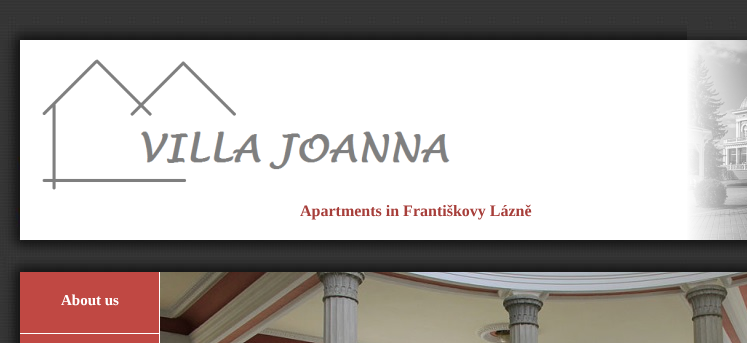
<svg xmlns="http://www.w3.org/2000/svg" width="747" height="343" viewBox="0 0 747 343">
  <rect width="100%" height="100%" fill="#fff"/>
  <image x="0" y="0" width="747" height="256" href="img/1.png"/>
  <image x="0" y="256" width="747" height="87" href="img/2.png"/>
  <path d="M20 272h139v61H20z" fill="#c04843"/>
  <path d="M20 334h139v9H20z" fill="#c04843"/>
  <image x="160" y="272" width="587" height="71" href="img/3.png"/>
  <text x="300" y="216" font-family="Liberation Serif" font-size="16" font-weight="bold" fill="#a73e3a">Apartments in Františkovy Lázně</text>
  <text x="61" y="305" font-family="Liberation Serif" font-size="15" font-weight="bold" fill="#fff">About us</text>
</svg>
